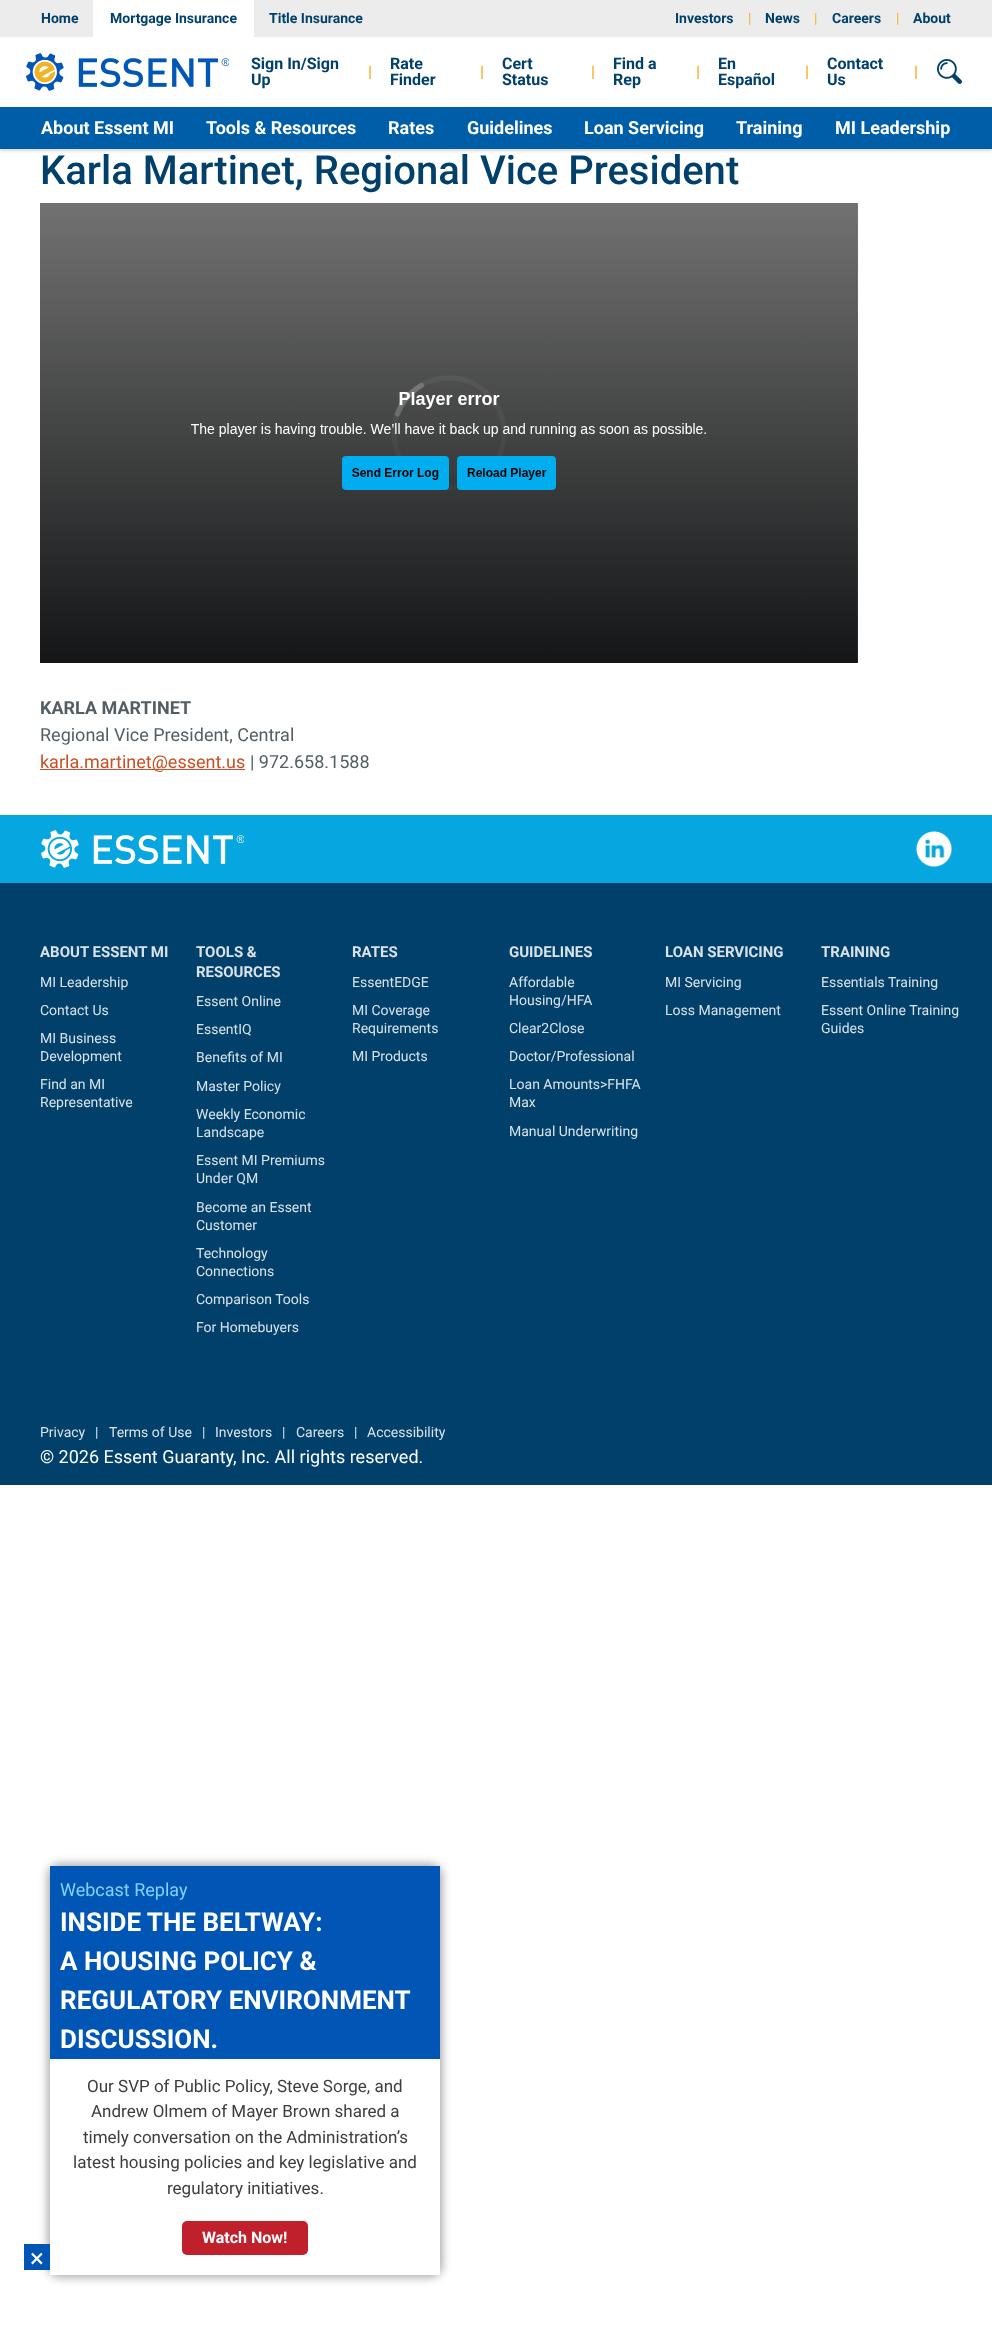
<svg xmlns="http://www.w3.org/2000/svg" width="992" height="2325" viewBox="0 0 992 2325">
  <rect width="100%" height="100%" fill="#fff"/>
  <path d="M0 0h992v37H0z" fill="#ececec"/>
  <path d="M93 0h161v37H93z" fill="#fff"/>
  <image x="26" y="53" width="203" height="38" href="img/1.png"/>
  <image x="937" y="59" width="25" height="25" href="img/2.png"/>
  <path d="M0 109h992v42H0z" fill="#00000026" filter="blur(1.5px)"/>
  <path d="M0 107h992v42H0z" fill="#005da8"/>
  <image x="40" y="203" width="818" height="460" href="img/3.png"/>
  <path d="M40 769h205v1H40z" fill="#c95023"/>
  <path d="M0 815h992v68H0z" fill="#06a6e0"/>
  <image x="41" y="830" width="203" height="38" href="img/4.png"/>
  <image x="916" y="831" width="36" height="36" href="img/5.png"/>
  <path d="M0 883h992v602H0z" fill="#00406b"/>
  <rect x="48" y="1864" width="394" height="413" rx="12" fill="#0000005c" filter="blur(5px)"/>
  <path d="M50 1866h390v193H50z" fill="#0155b5"/>
  <path d="M50 2059h390v216H50z" fill="#fff"/>
  <rect x="182" y="2221" width="126" height="34" rx="5" fill="#c0202c"/>
  <path d="M24 2244h26v26H24z" fill="#0155b5"/>
  <g font-family="Roboto" font-size="14" font-weight="bold" fill="#00406b">
    <text x="41" y="23">Home</text>
    <text x="110" y="23">Mortgage Insurance</text>
    <text x="269" y="23">Title Insurance</text>
    <text x="675" y="23">Investors</text>
  </g>
  <text x="748" y="23" font-family="Roboto" font-size="14" fill="#f4b223">|</text>
  <text x="765" y="23" font-family="Roboto" font-size="14" font-weight="bold" fill="#00406b">News</text>
  <text x="814" y="23" font-family="Roboto" font-size="14" fill="#f4b223">|</text>
  <text x="832" y="23" font-family="Roboto" font-size="14" font-weight="bold" fill="#00406b">Careers</text>
  <text x="896" y="23" font-family="Roboto" font-size="14" fill="#f4b223">|</text>
  <text x="913" y="23" font-family="Roboto" font-size="14" font-weight="bold" fill="#00406b">About</text>
  <text x="251" y="69" font-family="Roboto" font-size="16" font-weight="bold" fill="#00406b">Sign In/Sign</text>
  <text x="368" y="77" font-family="Roboto" font-size="16" font-weight="bold" fill="#f4b223">|</text>
  <g font-family="Roboto" font-size="16" font-weight="bold" fill="#00406b">
    <text x="251" y="85">Up</text>
    <text x="390" y="69">Rate</text>
    <text x="390" y="85">Finder</text>
  </g>
  <text x="480" y="77" font-family="Roboto" font-size="16" font-weight="bold" fill="#f4b223">|</text>
  <g font-family="Roboto" font-size="16" font-weight="bold" fill="#00406b">
    <text x="502" y="69">Cert</text>
    <text x="502" y="85">Status</text>
  </g>
  <text x="591" y="77" font-family="Roboto" font-size="16" font-weight="bold" fill="#f4b223">|</text>
  <g font-family="Roboto" font-size="16" font-weight="bold" fill="#00406b">
    <text x="613" y="69">Find a</text>
    <text x="613" y="85">Rep</text>
  </g>
  <text x="696" y="77" font-family="Roboto" font-size="16" font-weight="bold" fill="#f4b223">|</text>
  <g font-family="Roboto" font-size="16" font-weight="bold" fill="#00406b">
    <text x="718" y="69">En</text>
    <text x="718" y="85">Español</text>
  </g>
  <text x="805" y="77" font-family="Roboto" font-size="16" font-weight="bold" fill="#f4b223">|</text>
  <g font-family="Roboto" font-size="16" font-weight="bold" fill="#00406b">
    <text x="827" y="69">Contact</text>
    <text x="827" y="85">Us</text>
  </g>
  <text x="914" y="77" font-family="Roboto" font-size="16" font-weight="bold" fill="#f4b223">|</text>
  <g font-family="Roboto" font-size="18" font-weight="bold" fill="#fff">
    <text x="41" y="134">About Essent MI</text>
    <text x="206" y="134">Tools &amp; Resources</text>
    <text x="388" y="134">Rates</text>
    <text x="467" y="134">Guidelines</text>
    <text x="584" y="134">Loan Servicing</text>
    <text x="736" y="134">Training</text>
    <text x="835" y="134">MI Leadership</text>
  </g>
  <text x="40" y="184" font-family="Roboto" font-size="40" font-weight="500" fill="#00406b">Karla Martinet, Regional Vice President</text>
  <text x="40" y="714" font-family="Roboto" font-size="18" font-weight="bold" fill="#535e63">KARLA MARTINET</text>
  <text x="40" y="741" font-family="Roboto" font-size="18" fill="#535e63">Regional Vice President, Central</text>
  <text x="40" y="768" font-family="Roboto" font-size="18" fill="#c95023">karla.martinet@essent.us</text>
  <text x="250" y="768" font-family="Roboto" font-size="18" fill="#535e63">| 972.658.1588</text>
  <text x="40" y="957" font-family="Roboto" font-size="15" font-weight="bold" fill="#d9e2e9">ABOUT ESSENT MI</text>
  <g font-family="Roboto" font-size="14" fill="#d9e2e9">
    <text x="40" y="987">MI Leadership</text>
    <text x="40" y="1015">Contact Us</text>
    <text x="40" y="1043">MI Business</text>
    <text x="40" y="1061">Development</text>
    <text x="40" y="1089">Find an MI</text>
    <text x="40" y="1107">Representative</text>
  </g>
  <g font-family="Roboto" font-size="15" font-weight="bold" fill="#d9e2e9">
    <text x="196" y="957">TOOLS &amp;</text>
    <text x="196" y="977">RESOURCES</text>
  </g>
  <g font-family="Roboto" font-size="14" fill="#d9e2e9">
    <text x="196" y="1006">Essent Online</text>
    <text x="196" y="1034">EssentIQ</text>
    <text x="196" y="1062">Benefits of MI</text>
    <text x="196" y="1091">Master Policy</text>
    <text x="196" y="1119">Weekly Economic</text>
    <text x="196" y="1137">Landscape</text>
    <text x="196" y="1165">Essent MI Premiums</text>
    <text x="196" y="1183">Under QM</text>
    <text x="196" y="1212">Become an Essent</text>
    <text x="196" y="1230">Customer</text>
    <text x="196" y="1258">Technology</text>
    <text x="196" y="1276">Connections</text>
    <text x="196" y="1304">Comparison Tools</text>
    <text x="196" y="1332">For Homebuyers</text>
  </g>
  <text x="352" y="957" font-family="Roboto" font-size="15" font-weight="bold" fill="#d9e2e9">RATES</text>
  <g font-family="Roboto" font-size="14" fill="#d9e2e9">
    <text x="352" y="987">EssentEDGE</text>
    <text x="352" y="1015">MI Coverage</text>
    <text x="352" y="1033">Requirements</text>
    <text x="352" y="1061">MI Products</text>
  </g>
  <text x="509" y="957" font-family="Roboto" font-size="15" font-weight="bold" fill="#d9e2e9">GUIDELINES</text>
  <g font-family="Roboto" font-size="14" fill="#d9e2e9">
    <text x="509" y="987">Affordable</text>
    <text x="509" y="1005">Housing/HFA</text>
    <text x="509" y="1033">Clear2Close</text>
    <text x="509" y="1061">Doctor/Professional</text>
    <text x="509" y="1089">Loan Amounts&gt;FHFA</text>
    <text x="509" y="1107">Max</text>
    <text x="509" y="1136">Manual Underwriting</text>
  </g>
  <text x="665" y="957" font-family="Roboto" font-size="15" font-weight="bold" fill="#d9e2e9">LOAN SERVICING</text>
  <g font-family="Roboto" font-size="14" fill="#d9e2e9">
    <text x="665" y="987">MI Servicing</text>
    <text x="665" y="1015">Loss Management</text>
  </g>
  <text x="821" y="957" font-family="Roboto" font-size="15" font-weight="bold" fill="#d9e2e9">TRAINING</text>
  <g font-family="Roboto" font-size="14" fill="#d9e2e9">
    <text x="821" y="987">Essentials Training</text>
    <text x="821" y="1015">Essent Online Training</text>
    <text x="821" y="1033">Guides</text>
    <text x="40" y="1437">Privacy</text>
    <text x="95" y="1437">|</text>
    <text x="109" y="1437">Terms of Use</text>
    <text x="202" y="1437">|</text>
    <text x="215" y="1437">Investors</text>
    <text x="282" y="1437">|</text>
    <text x="296" y="1437">Careers</text>
    <text x="354" y="1437">|</text>
    <text x="367" y="1437">Accessibility</text>
  </g>
  <text x="40" y="1463" font-family="Roboto" font-size="18" fill="#fff">© 2026 Essent Guaranty, Inc. All rights reserved.</text>
  <text x="60" y="1896" font-family="Roboto" font-size="18" fill="#83d2fc">Webcast Replay</text>
  <g font-family="Roboto" font-size="26" font-weight="bold" fill="#fff">
    <text x="60" y="1931">INSIDE THE BELTWAY:</text>
    <text x="60" y="1970">A HOUSING POLICY &amp;</text>
    <text x="60" y="2009">REGULATORY ENVIRONMENT</text>
    <text x="60" y="2048">DISCUSSION.</text>
  </g>
  <g font-family="Roboto" font-size="17" fill="#3e3c3c">
    <text x="87" y="2092">Our SVP of Public Policy, Steve Sorge, and</text>
    <text x="91" y="2117">Andrew Olmem of Mayer Brown shared a</text>
    <text x="83" y="2143">timely conversation on the Administration’s</text>
    <text x="73" y="2168">latest housing policies and key legislative and</text>
    <text x="167" y="2194">regulatory initiatives.</text>
  </g>
  <text x="202" y="2243" font-family="Roboto" font-size="16" font-weight="bold" fill="#fff">Watch Now!</text>
  <text x="30" y="2267" font-family="Roboto" font-size="26" fill="#fff">×︎</text>
</svg>
